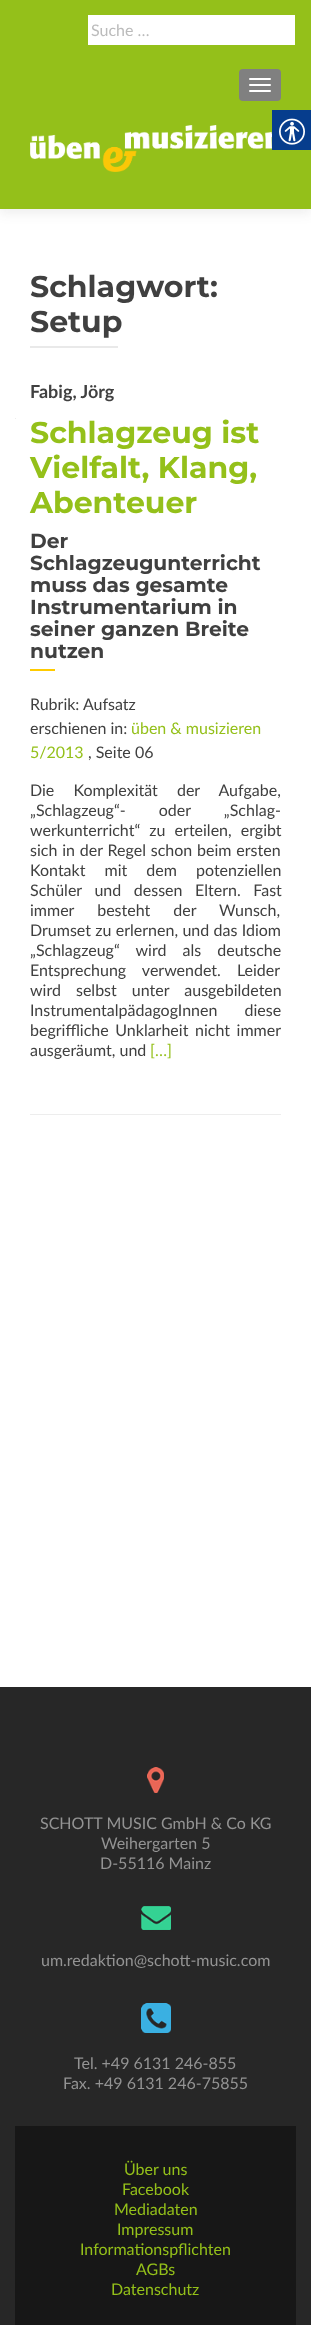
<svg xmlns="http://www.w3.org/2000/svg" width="311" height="2325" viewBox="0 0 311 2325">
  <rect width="100%" height="100%" fill="#fff"/>
  <path d="M0 -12h311v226H0z" fill="#32323214" filter="blur(5.5px)"/>
  <path d="M0 0h311v209H0z" fill="#94c01a"/>
  <path d="M88 15h207v30H88z" fill="#fff"/>
  <rect x="239" y="69" width="42" height="32" rx="4" fill="#808080"/>
  <rect x="249" y="78" width="22" height="2" rx="1" fill="#fff"/>
  <rect x="249" y="84" width="22" height="2" rx="1" fill="#fff"/>
  <rect x="249" y="90" width="22" height="2" rx="1" fill="#fff"/>
  <image x="30" y="125" width="242" height="47" href="img/1.png"/>
  <path d="M15 418h1v1H15z" fill="#ededed"/>
  <path d="M30 346h88v2H30z" fill="#e9e9e9"/>
  <path d="M30 1114h251v1H30z" fill="#ededed"/>
  <path d="M30 669h25v2H30z" fill="#ffcb00"/>
  <path d="M0 1687h311v638H0z" fill="#272727"/>
  <image x="147" y="1767" width="17" height="26" href="img/2.png"/>
  <image x="141" y="1906" width="30" height="24" href="img/3.png"/>
  <image x="141" y="2003" width="30" height="30" href="img/4.png"/>
  <path d="M15 2126h281v199H15z" fill="#171717"/>
  <path d="M272 110h39v40H272z" fill="#063d8d"/>
  <image x="279" y="118" width="26" height="27" href="img/5.png"/>
  <text x="91" y="36" font-family="Lato" font-size="16" fill="#bbb">Suche …</text>
  <g font-family="Montserrat" font-size="30" font-weight="bold" fill="#404040">
    <text x="30" y="297">Schlagwort:</text>
    <text x="30" y="332">Setup</text>
  </g>
  <text x="30" y="398" font-family="Lato" font-size="18" font-weight="bold" fill="#404040">Fabig, Jörg</text>
  <g font-family="Montserrat" font-size="30" font-weight="bold" fill="#94c01a">
    <text x="30" y="443">Schlagzeug ist</text>
    <text x="30" y="478">Vielfalt, Klang,</text>
    <text x="30" y="513">Abenteuer</text>
  </g>
  <g font-family="Montserrat" font-size="20.25" font-weight="bold" fill="#404040">
    <text x="30" y="548">Der</text>
    <text x="30" y="570">Schlagzeugunterricht</text>
    <text x="30" y="592">muss das gesamte</text>
    <text x="30" y="614">Instrumentarium in</text>
    <text x="30" y="636">seiner ganzen Breite</text>
    <text x="30" y="658">nutzen</text>
  </g>
  <g font-family="Lato" font-size="16" fill="#404040">
    <text x="30" y="710">Rubrik: Aufsatz</text>
    <text x="30" y="734">erschienen in:</text>
  </g>
  <g font-family="Lato" font-size="16" fill="#94c01a">
    <text x="131" y="734">üben &amp; musizieren</text>
    <text x="30" y="758">5/2013</text>
  </g>
  <g font-family="Lato" font-size="16" fill="#404040">
    <text x="88" y="758">, Seite 06</text>
    <text x="30" y="796" word-spacing="15">Die Komplexität der Aufgabe,</text>
    <text x="30" y="816" word-spacing="29">„Schlagzeug“- oder „Schlag-</text>
    <text x="30" y="836" word-spacing="5">werkunterricht“ zu erteilen, ergibt</text>
    <text x="30" y="856" word-spacing="0.75">sich in der Regel schon beim ersten</text>
    <text x="30" y="876" word-spacing="15">Kontakt mit dem potenziellen</text>
    <text x="30" y="896" word-spacing="8.5">Schüler und dessen Eltern. Fast</text>
    <text x="30" y="916" word-spacing="19">immer besteht der Wunsch,</text>
    <text x="30" y="936" word-spacing="0.25">Drumset zu erlernen, und das Idiom</text>
    <text x="30" y="956" word-spacing="12">„Schlagzeug“ wird als deutsche</text>
    <text x="30" y="976" word-spacing="12">Entsprechung verwendet. Leider</text>
    <text x="30" y="996" word-spacing="11">wird selbst unter ausgebildeten</text>
    <text x="30" y="1016" word-spacing="23">InstrumentalpädagogInnen diese</text>
    <text x="30" y="1036" word-spacing="2.5">begriffliche Unklarheit nicht immer</text>
    <text x="30" y="1056">ausgeräumt, und</text>
  </g>
  <text x="150" y="1056" font-family="Lato" font-size="16" fill="#94c01a">[…]</text>
  <g font-family="Lato" font-size="16" fill="#939393">
    <text x="40" y="1829">SCHOTT MUSIC GmbH &amp; Co KG</text>
    <text x="101" y="1849">Weihergarten 5</text>
    <text x="100" y="1869">D-55116 Mainz</text>
    <text x="41" y="1966">um.redaktion@schott-music.com</text>
    <text x="74" y="2069">Tel. +49 6131 246-855</text>
    <text x="63" y="2089">Fax. +49 6131 246-75855</text>
  </g>
  <g font-family="Lato" font-size="16" fill="#94c01a">
    <text x="124" y="2175">Über uns</text>
    <text x="122" y="2195">Facebook</text>
    <text x="114" y="2215">Mediadaten</text>
    <text x="117" y="2235">Impressum</text>
    <text x="80" y="2255">Informationspflichten</text>
    <text x="136" y="2275">AGBs</text>
    <text x="111" y="2295">Datenschutz</text>
  </g>
</svg>
